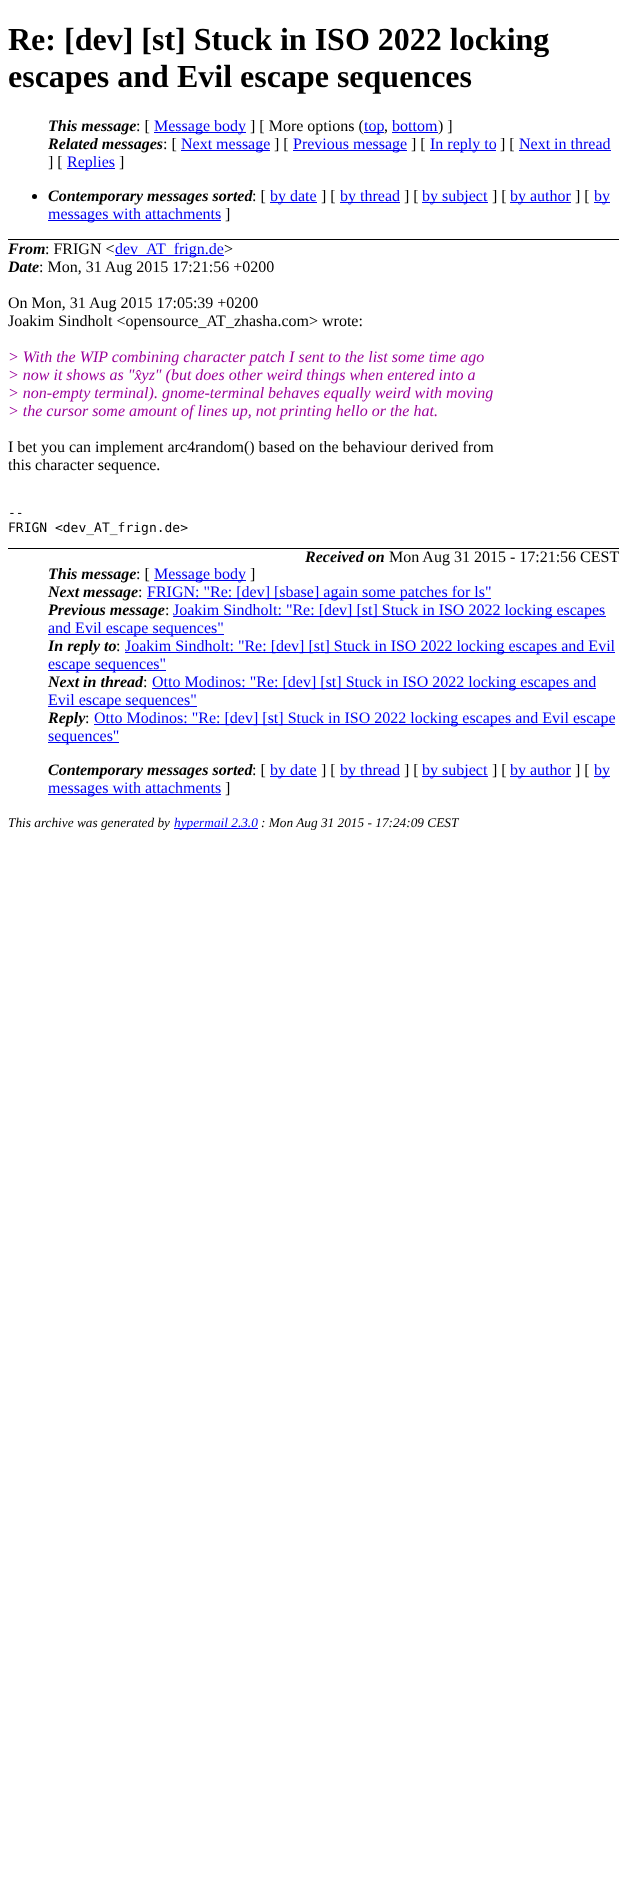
<svg xmlns="http://www.w3.org/2000/svg" width="627" height="1895" viewBox="0 0 627 1895">
  <rect width="100%" height="100%" fill="#fff"/>
  <path d="M8 239h611v1H8z" fill="#000"/>
  <path d="M154 132h92v1H154z" fill="#00e"/>
  <path d="M364 132h20v1H364z" fill="#00e"/>
  <path d="M392 132h46v1H392z" fill="#00e"/>
  <path d="M181 150h89v1H181z" fill="#00e"/>
  <path d="M293 150h114v1H293z" fill="#00e"/>
  <path d="M430 150h66v1H430z" fill="#00e"/>
  <path d="M519 150h92v1H519z" fill="#00e"/>
  <path d="M67 168h48v1H67z" fill="#00e"/>
  <circle cx="34.5" cy="196.5" r="2.5" fill="#000"/>
  <path d="M270 202h47v1H270z" fill="#00e"/>
  <path d="M340 202h60v1H340z" fill="#00e"/>
  <path d="M422 202h66v1H422z" fill="#00e"/>
  <path d="M510 202h61v1H510z" fill="#00e"/>
  <path d="M594 202h16v1H594z" fill="#00e"/>
  <path d="M48 220h173v1H48z" fill="#00e"/>
  <path d="M115 255h109v1H115z" fill="#00e"/>
  <path d="M8 548h611v1H8z" fill="#000"/>
  <path d="M154 580h92v1H154z" fill="#00e"/>
  <path d="M147 598h344v1H147z" fill="#00e"/>
  <path d="M173 616h433v1H173z" fill="#00e"/>
  <path d="M48 634h176v1H48z" fill="#00e"/>
  <path d="M125 652h490v1H125z" fill="#00e"/>
  <path d="M48 670h118v1H48z" fill="#00e"/>
  <path d="M152 688h444v1H152z" fill="#00e"/>
  <path d="M48 706h149v1H48z" fill="#00e"/>
  <path d="M94 724h521v1H94z" fill="#00e"/>
  <path d="M48 742h71v1H48z" fill="#00e"/>
  <path d="M270 776h47v1H270z" fill="#00e"/>
  <path d="M340 776h60v1H340z" fill="#00e"/>
  <path d="M422 776h66v1H422z" fill="#00e"/>
  <path d="M510 776h61v1H510z" fill="#00e"/>
  <path d="M594 776h16v1H594z" fill="#00e"/>
  <path d="M48 794h173v1H48z" fill="#00e"/>
  <path d="M174 828h84v1H174z" fill="#00e"/>
  <g font-family="Liberation Serif" font-size="32" font-weight="bold" fill="#000">
    <text x="8" y="50">Re: [dev] [st] Stuck in ISO 2022 locking</text>
    <text x="8" y="87">escapes and Evil escape sequences</text>
  </g>
  <text x="48" y="131" font-family="Liberation Serif" font-size="16" font-weight="bold" font-style="italic" fill="#000">This message</text>
  <text x="136" y="131" font-family="Liberation Serif" font-size="16" fill="#000">: [</text>
  <text x="154" y="131" font-family="Liberation Serif" font-size="16" fill="#00e">Message body</text>
  <text x="250" y="131" font-family="Liberation Serif" font-size="16" fill="#000">] [ More options (</text>
  <text x="364" y="131" font-family="Liberation Serif" font-size="16" fill="#00e">top</text>
  <text x="384" y="131" font-family="Liberation Serif" font-size="16" fill="#000">,</text>
  <text x="392" y="131" font-family="Liberation Serif" font-size="16" fill="#00e">bottom</text>
  <text x="438" y="131" font-family="Liberation Serif" font-size="16" fill="#000">) ]</text>
  <text x="48" y="149" font-family="Liberation Serif" font-size="16" font-weight="bold" font-style="italic" fill="#000">Related messages</text>
  <text x="163" y="149" font-family="Liberation Serif" font-size="16" fill="#000">: [</text>
  <text x="181" y="149" font-family="Liberation Serif" font-size="16" fill="#00e">Next message</text>
  <text x="274" y="149" font-family="Liberation Serif" font-size="16" fill="#000">] [</text>
  <text x="293" y="149" font-family="Liberation Serif" font-size="16" fill="#00e">Previous message</text>
  <text x="411" y="149" font-family="Liberation Serif" font-size="16" fill="#000">] [</text>
  <text x="430" y="149" font-family="Liberation Serif" font-size="16" fill="#00e">In reply to</text>
  <text x="500" y="149" font-family="Liberation Serif" font-size="16" fill="#000">] [</text>
  <text x="519" y="149" font-family="Liberation Serif" font-size="16" fill="#00e">Next in thread</text>
  <text x="48" y="167" font-family="Liberation Serif" font-size="16" fill="#000">] [</text>
  <text x="67" y="167" font-family="Liberation Serif" font-size="16" fill="#00e">Replies</text>
  <text x="119" y="167" font-family="Liberation Serif" font-size="16" fill="#000">]</text>
  <text x="48" y="201" font-family="Liberation Serif" font-size="16" font-weight="bold" font-style="italic" fill="#000">Contemporary messages sorted</text>
  <text x="252" y="201" font-family="Liberation Serif" font-size="16" fill="#000">: [</text>
  <text x="270" y="201" font-family="Liberation Serif" font-size="16" fill="#00e">by date</text>
  <text x="321" y="201" font-family="Liberation Serif" font-size="16" fill="#000">] [</text>
  <text x="340" y="201" font-family="Liberation Serif" font-size="16" fill="#00e">by thread</text>
  <text x="404" y="201" font-family="Liberation Serif" font-size="16" fill="#000">] [</text>
  <text x="422" y="201" font-family="Liberation Serif" font-size="16" fill="#00e">by subject</text>
  <text x="492" y="201" font-family="Liberation Serif" font-size="16" fill="#000">] [</text>
  <text x="510" y="201" font-family="Liberation Serif" font-size="16" fill="#00e">by author</text>
  <text x="575" y="201" font-family="Liberation Serif" font-size="16" fill="#000">] [</text>
  <g font-family="Liberation Serif" font-size="16" fill="#00e">
    <text x="594" y="201">by</text>
    <text x="48" y="219">messages with attachments</text>
  </g>
  <text x="225" y="219" font-family="Liberation Serif" font-size="16" fill="#000">]</text>
  <text x="8" y="254" font-family="Liberation Serif" font-size="16" font-weight="bold" font-style="italic" fill="#000">From</text>
  <text x="45" y="254" font-family="Liberation Serif" font-size="16" fill="#000">: FRIGN &lt;</text>
  <text x="115" y="254" font-family="Liberation Serif" font-size="16" fill="#00e">dev_AT_frign.de</text>
  <text x="224" y="254" font-family="Liberation Serif" font-size="16" fill="#000">&gt;</text>
  <text x="8" y="272" font-family="Liberation Serif" font-size="16" font-weight="bold" font-style="italic" fill="#000">Date</text>
  <g font-family="Liberation Serif" font-size="16" fill="#000">
    <text x="39" y="272">: Mon, 31 Aug 2015 17:21:56 +0200</text>
    <text x="8" y="308">On Mon, 31 Aug 2015 17:05:39 +0200</text>
    <text x="8" y="326">Joakim Sindholt &lt;opensource_AT_zhasha.com&gt; wrote:</text>
  </g>
  <g font-family="Liberation Serif" font-size="16" font-style="italic" fill="#909">
    <text x="8" y="362">&gt; With the WIP combining character patch I sent to the list some time ago</text>
    <text x="8" y="380">&gt; now it shows as "x̂yz" (but does other weird things when entered into a</text>
    <text x="8" y="398">&gt; non-empty terminal). gnome-terminal behaves equally weird with moving</text>
    <text x="8" y="416">&gt; the cursor some amount of lines up, not printing hello or the hat.</text>
  </g>
  <g font-family="Liberation Serif" font-size="16" fill="#000">
    <text x="8" y="452">I bet you can implement arc4random() based on the behaviour derived from</text>
    <text x="8" y="470">this character sequence.</text>
  </g>
  <g font-family="DejaVu Sans Mono" font-size="13" fill="#000">
    <text x="8" y="517">--</text>
    <text x="8" y="532">FRIGN &lt;dev_AT_frign.de&gt;</text>
  </g>
  <text x="305" y="562" font-family="Liberation Serif" font-size="16" font-weight="bold" font-style="italic" fill="#000">Received on</text>
  <text x="389" y="562" font-family="Liberation Serif" font-size="16" fill="#000">Mon Aug 31 2015 - 17:21:56 CEST</text>
  <text x="48" y="579" font-family="Liberation Serif" font-size="16" font-weight="bold" font-style="italic" fill="#000">This message</text>
  <text x="136" y="579" font-family="Liberation Serif" font-size="16" fill="#000">: [</text>
  <text x="154" y="579" font-family="Liberation Serif" font-size="16" fill="#00e">Message body</text>
  <text x="250" y="579" font-family="Liberation Serif" font-size="16" fill="#000">]</text>
  <text x="48" y="597" font-family="Liberation Serif" font-size="16" font-weight="bold" font-style="italic" fill="#000">Next message</text>
  <text x="138" y="597" font-family="Liberation Serif" font-size="16" fill="#000">:</text>
  <text x="147" y="597" font-family="Liberation Serif" font-size="16" fill="#00e">FRIGN: "Re: [dev] [sbase] again some patches for ls"</text>
  <text x="48" y="615" font-family="Liberation Serif" font-size="16" font-weight="bold" font-style="italic" fill="#000">Previous message</text>
  <text x="165" y="615" font-family="Liberation Serif" font-size="16" fill="#000">:</text>
  <g font-family="Liberation Serif" font-size="16" fill="#00e">
    <text x="173" y="615">Joakim Sindholt: "Re: [dev] [st] Stuck in ISO 2022 locking escapes</text>
    <text x="48" y="633">and Evil escape sequences"</text>
  </g>
  <text x="48" y="651" font-family="Liberation Serif" font-size="16" font-weight="bold" font-style="italic" fill="#000">In reply to</text>
  <text x="116" y="651" font-family="Liberation Serif" font-size="16" fill="#000">:</text>
  <g font-family="Liberation Serif" font-size="16" fill="#00e">
    <text x="125" y="651">Joakim Sindholt: "Re: [dev] [st] Stuck in ISO 2022 locking escapes and Evil</text>
    <text x="48" y="669">escape sequences"</text>
  </g>
  <text x="48" y="687" font-family="Liberation Serif" font-size="16" font-weight="bold" font-style="italic" fill="#000">Next in thread</text>
  <text x="143" y="687" font-family="Liberation Serif" font-size="16" fill="#000">:</text>
  <g font-family="Liberation Serif" font-size="16" fill="#00e">
    <text x="152" y="687">Otto Modinos: "Re: [dev] [st] Stuck in ISO 2022 locking escapes and</text>
    <text x="48" y="705">Evil escape sequences"</text>
  </g>
  <text x="48" y="723" font-family="Liberation Serif" font-size="16" font-weight="bold" font-style="italic" fill="#000">Reply</text>
  <text x="85" y="723" font-family="Liberation Serif" font-size="16" fill="#000">:</text>
  <g font-family="Liberation Serif" font-size="16" fill="#00e">
    <text x="94" y="723">Otto Modinos: "Re: [dev] [st] Stuck in ISO 2022 locking escapes and Evil escape</text>
    <text x="48" y="741">sequences"</text>
  </g>
  <text x="48" y="775" font-family="Liberation Serif" font-size="16" font-weight="bold" font-style="italic" fill="#000">Contemporary messages sorted</text>
  <text x="252" y="775" font-family="Liberation Serif" font-size="16" fill="#000">: [</text>
  <text x="270" y="775" font-family="Liberation Serif" font-size="16" fill="#00e">by date</text>
  <text x="321" y="775" font-family="Liberation Serif" font-size="16" fill="#000">] [</text>
  <text x="340" y="775" font-family="Liberation Serif" font-size="16" fill="#00e">by thread</text>
  <text x="404" y="775" font-family="Liberation Serif" font-size="16" fill="#000">] [</text>
  <text x="422" y="775" font-family="Liberation Serif" font-size="16" fill="#00e">by subject</text>
  <text x="492" y="775" font-family="Liberation Serif" font-size="16" fill="#000">] [</text>
  <text x="510" y="775" font-family="Liberation Serif" font-size="16" fill="#00e">by author</text>
  <text x="575" y="775" font-family="Liberation Serif" font-size="16" fill="#000">] [</text>
  <g font-family="Liberation Serif" font-size="16" fill="#00e">
    <text x="594" y="775">by</text>
    <text x="48" y="793">messages with attachments</text>
  </g>
  <text x="225" y="793" font-family="Liberation Serif" font-size="16" fill="#000">]</text>
  <text x="8" y="827" font-family="Liberation Serif" font-size="13.3" font-style="italic" fill="#000">This archive was generated by</text>
  <text x="174" y="827" font-family="Liberation Serif" font-size="13.3" font-style="italic" fill="#00e">hypermail 2.3.0</text>
  <text x="261" y="827" font-family="Liberation Serif" font-size="13.3" font-style="italic" fill="#000">: Mon Aug 31 2015 - 17:24:09 CEST</text>
</svg>
